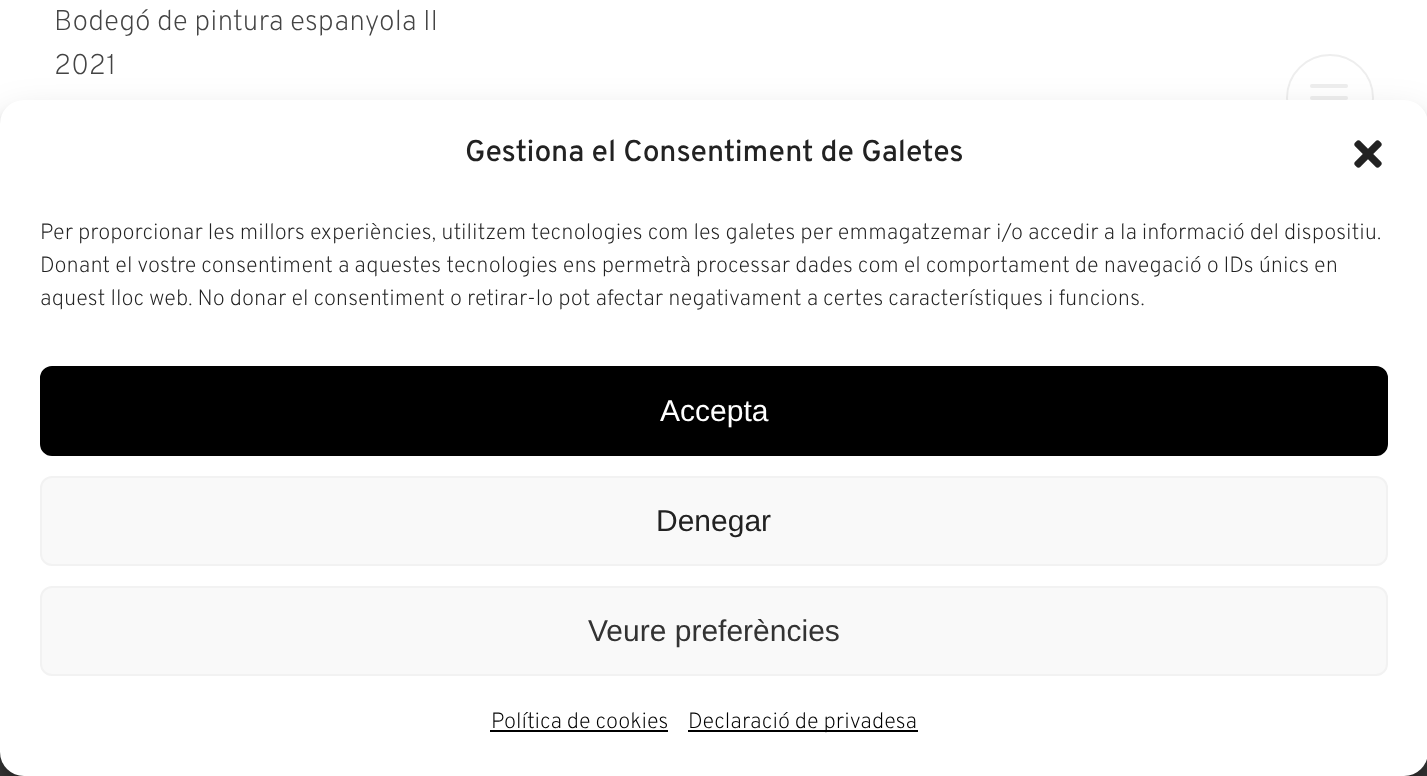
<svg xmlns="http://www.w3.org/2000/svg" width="1427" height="776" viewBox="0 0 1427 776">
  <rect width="100%" height="100%" fill="#fff"/>
  <circle cx="1330" cy="98" r="43" fill="none" stroke="#eee" stroke-width="2"/>
  <rect x="1310" y="96" width="38" height="4" rx="2" fill="#eee"/>
  <rect x="1310" y="84" width="38" height="4" rx="2" fill="#eee"/>
  <path d="M0 752h1427v24H0z" fill="#3b3b3b"/>
  <rect y="112" width="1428" height="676" rx="24" fill="#0000003b" filter="blur(6px)"/>
  <rect y="120" width="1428" height="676" rx="24" fill="#00000030" filter="blur(20px)"/>
  <rect y="100" width="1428" height="676" rx="24" fill="#fff"/>
  <image x="1354" y="140" width="28" height="28" href="img/1.png"/>
  <rect x="41" y="367" width="1346" height="88" rx="11" fill="#000" stroke="#000" stroke-width="2"/>
  <rect x="41" y="477" width="1346" height="88" rx="11" fill="#f9f9f9" stroke="#f2f2f2" stroke-width="2"/>
  <rect x="41" y="587" width="1346" height="88" rx="11" fill="#f9f9f9" stroke="#f2f2f2" stroke-width="2"/>
  <path d="M490 730h178v2H490z" fill="#000"/>
  <path d="M688 730h230v2H688z" fill="#000"/>
  <g font-family="Overpass" font-size="28.5" font-weight="200" fill="#444">
    <text x="54" y="30">Bodegó de pintura espanyola II</text>
    <text x="54" y="74">2021</text>
  </g>
  <text x="465" y="161" font-family="Overpass" font-size="30" font-weight="500" fill="#222">Gestiona el Consentiment de Galetes</text>
  <g font-family="Overpass" font-size="22" font-weight="200" fill="#222">
    <text x="40" y="239">Per proporcionar les millors experiències, utilitzem tecnologies com les galetes per emmagatzemar i/o accedir a la informació del dispositiu.</text>
    <text x="40" y="272">Donant el vostre consentiment a aquestes tecnologies ens permetrà processar dades com el comportament de navegació o IDs únics en</text>
    <text x="40" y="305">aquest lloc web. No donar el consentiment o retirar-lo pot afectar negativament a certes característiques i funcions.</text>
  </g>
  <text x="660" y="421" font-family="Liberation Sans" font-size="30" fill="#fff">Accepta</text>
  <text x="656" y="531" font-family="Liberation Sans" font-size="30" fill="#222">Denegar</text>
  <text x="588" y="641" font-family="Liberation Sans" font-size="30" fill="#333">Veure preferències</text>
  <g font-family="Overpass" font-size="22" font-weight="200" fill="#000">
    <text x="491" y="728">Política de cookies</text>
    <text x="688" y="728">Declaració de privadesa</text>
  </g>
</svg>
